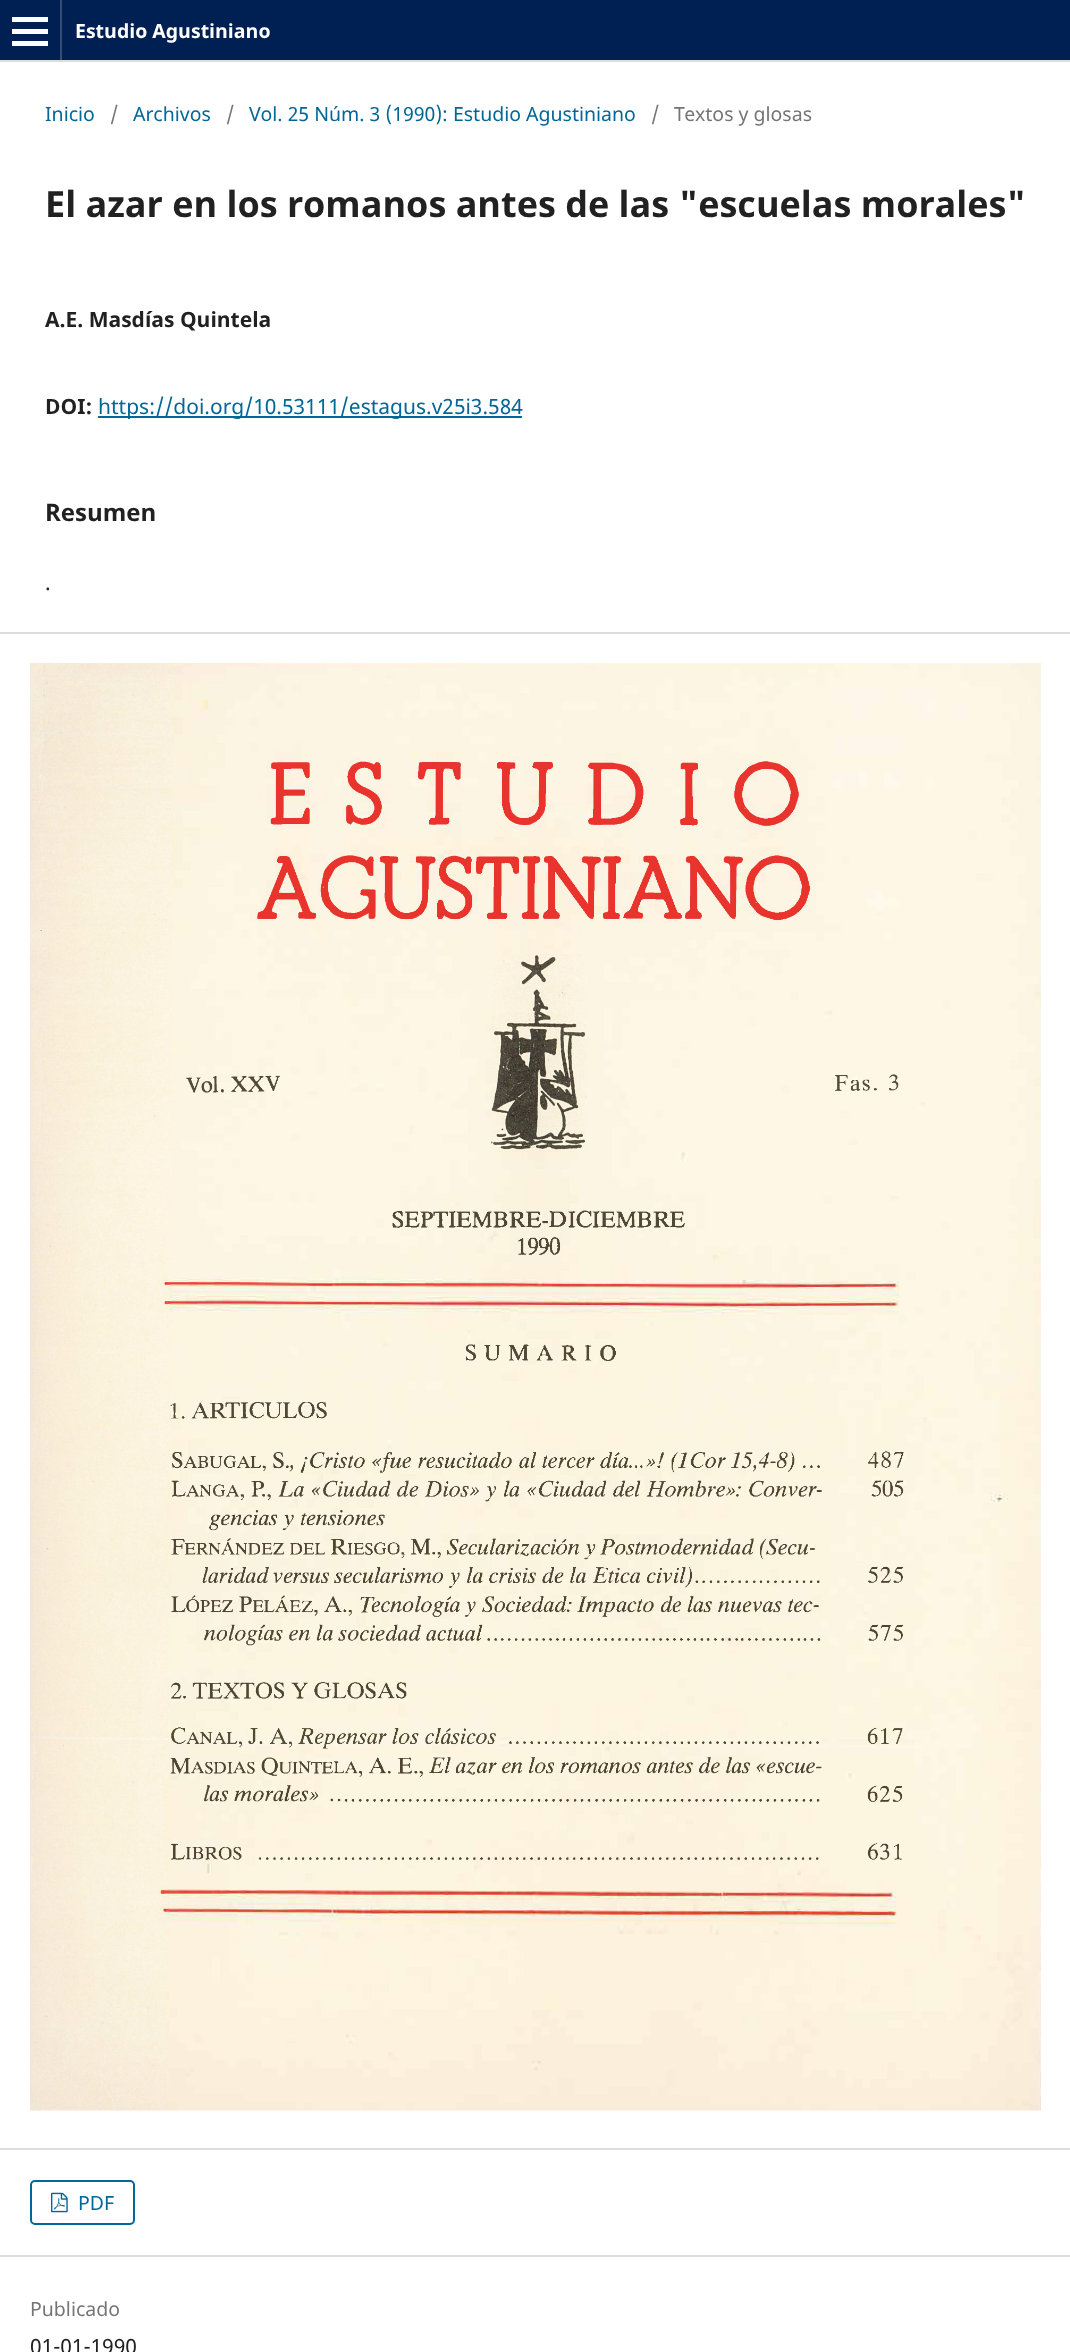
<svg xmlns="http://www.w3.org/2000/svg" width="1070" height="2352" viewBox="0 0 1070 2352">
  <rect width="100%" height="100%" fill="#fff"/>
  <path d="M0 0h1070v60H0z" fill="#002053"/>
  <path d="M0 60h1070v2H0z" fill="#ddd"/>
  <path d="M60 0h2v60H60z" fill="#334d75"/>
  <path d="M12 41h36v5H12z" fill="#fff"/>
  <path d="M12 17h36v5H12z" fill="#fff"/>
  <path d="M12 29h36v5H12z" fill="#fff"/>
  <path d="M98 416h424v2H98z" fill="#006798"/>
  <path d="M0 632h1070v2H0z" fill="#ddd"/>
  <path d="M0 2148h1070v2H0z" fill="#ddd"/>
  <image x="30" y="663" width="1011" height="1448" href="img/1.png"/>
  <path d="M0 2255h1070v2H0z" fill="#ddd"/>
  <rect x="31" y="2181" width="103" height="43" rx="4" fill="none" stroke="#006798" stroke-width="2"/>
  <image x="51" y="2192" width="17" height="21" href="img/2.png"/>
  <text x="75" y="38" font-family="Noto Sans" font-size="19.5" font-weight="bold" fill="#fff">Estudio Agustiniano</text>
  <text x="45" y="121" font-family="Noto Sans" font-size="19.5" fill="#006798">Inicio</text>
  <text x="110" y="121" font-family="Noto Sans" font-size="19.5" fill="#757575">/</text>
  <text x="133" y="121" font-family="Noto Sans" font-size="19.5" fill="#006798">Archivos</text>
  <text x="226" y="121" font-family="Noto Sans" font-size="19.5" fill="#757575">/</text>
  <text x="249" y="121" font-family="Noto Sans" font-size="19.5" fill="#006798">Vol. 25 Núm. 3 (1990): Estudio Agustiniano</text>
  <g font-family="Noto Sans" font-size="19.5" fill="#757575">
    <text x="651" y="121">/</text>
    <text x="674" y="121">Textos y glosas</text>
  </g>
  <text x="45" y="217" font-family="Noto Sans" font-size="36" font-weight="bold" fill="#212121">El azar en los romanos antes de las "escuelas morales"</text>
  <g font-family="Noto Sans" font-size="21" font-weight="bold" fill="#212121">
    <text x="45" y="327">A.E. Masdías Quintela</text>
    <text x="45" y="414">DOI:</text>
  </g>
  <text x="98" y="414" font-family="Noto Sans" font-size="21" fill="#006798">https://doi.org/10.53111/estagus.v25i3.584</text>
  <text x="45" y="521" font-family="Noto Sans" font-size="24" font-weight="bold" fill="#212121">Resumen</text>
  <text x="45" y="590" font-family="Noto Sans" font-size="21" fill="#212121">.</text>
  <text x="78" y="2210" font-family="Noto Sans" font-size="19.5" fill="#006798">PDF</text>
  <text x="30" y="2316" font-family="Noto Sans" font-size="19.5" fill="#757575">Publicado</text>
  <text x="30" y="2354" font-family="Noto Sans" font-size="21" fill="#212121">01-01-1990</text>
</svg>
